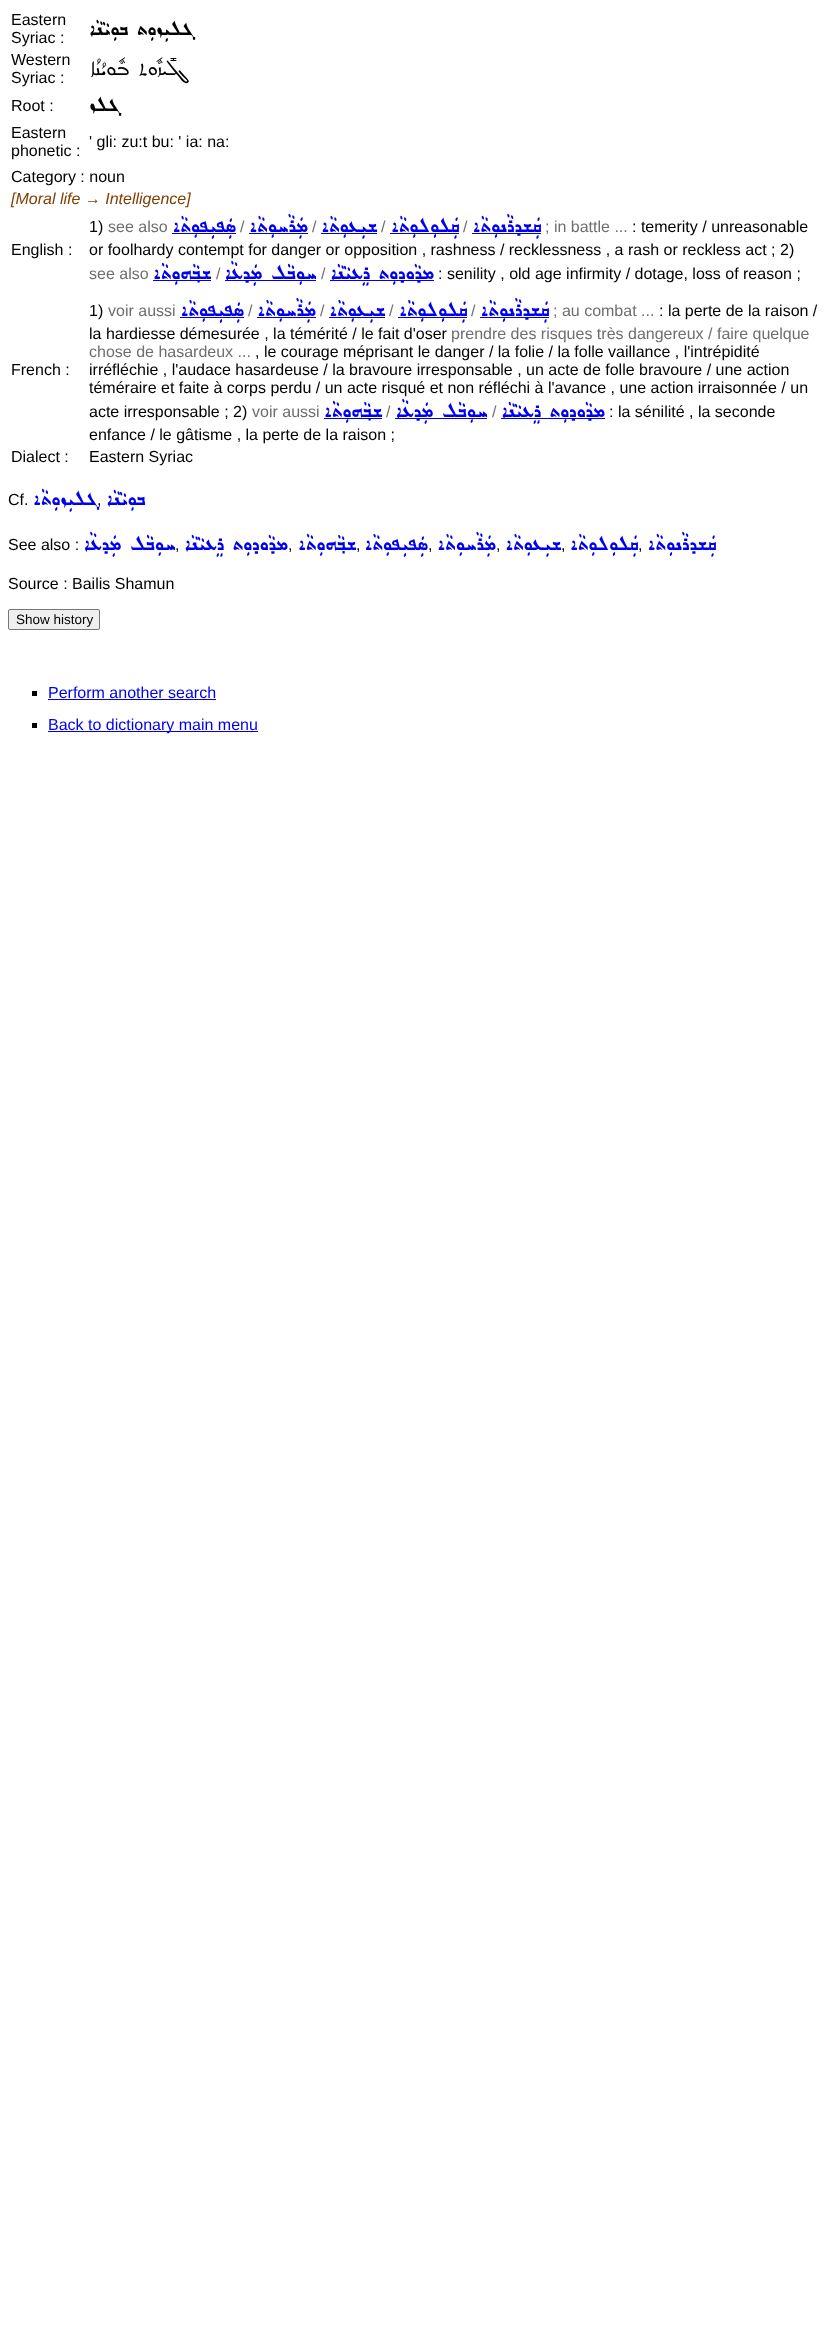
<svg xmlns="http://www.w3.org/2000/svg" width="831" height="2350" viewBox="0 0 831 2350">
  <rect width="100%" height="100%" fill="#fff"/>
  <path d="M172 233h64v1H172z" fill="#00e"/>
  <path d="M249 233h59v1H249z" fill="#00e"/>
  <path d="M321 233h56v1H321z" fill="#00e"/>
  <path d="M390 233h69v1H390z" fill="#00e"/>
  <path d="M472 233h69v1H472z" fill="#00e"/>
  <path d="M153 280h58v1H153z" fill="#00e"/>
  <path d="M225 280h91v1H225z" fill="#00e"/>
  <path d="M330 280h104v1H330z" fill="#00e"/>
  <path d="M180 317h64v1H180z" fill="#00e"/>
  <path d="M257 317h59v1H257z" fill="#00e"/>
  <path d="M329 317h56v1H329z" fill="#00e"/>
  <path d="M398 317h69v1H398z" fill="#00e"/>
  <path d="M480 317h69v1H480z" fill="#00e"/>
  <path d="M324 418h58v1H324z" fill="#00e"/>
  <path d="M395 418h92v1H395z" fill="#00e"/>
  <path d="M501 418h104v1H501z" fill="#00e"/>
  <rect x="8.5" y="609.5" width="91" height="20" rx="1.5" fill="#efefef" stroke="#767676"/>
  <path d="M32 691h5v5H32z" fill="#000"/>
  <path d="M48 699h168v1H48z" fill="#00e"/>
  <path d="M32 723h5v5H32z" fill="#000"/>
  <path d="M48 731h210v1H48z" fill="#00e"/>
  <g font-family="Liberation Sans" font-size="16" fill="#000">
    <text x="11" y="25">Eastern</text>
    <text x="11" y="43">Syriac :</text>
  </g>
  <text x="193" y="35" font-family="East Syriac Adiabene" font-size="25.5" direction="rtl" fill="#000">ܓܠܝܼܙܘܼܬ ܒܘܼܝܵܢܵܐ</text>
  <g font-family="Liberation Sans" font-size="16" fill="#000">
    <text x="11" y="65">Western</text>
    <text x="11" y="83">Syriac :</text>
  </g>
  <text x="189" y="75" font-family="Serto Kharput" font-size="27" direction="rtl" fill="#000">ܓܠܺܝܙܽܘܬ ܒܽܘܝܳܢܳܐ</text>
  <text x="11" y="111" font-family="Liberation Sans" font-size="16" fill="#000">Root :</text>
  <text x="119" y="111" font-family="East Syriac Adiabene" font-size="25.5" direction="rtl" fill="#000">ܓܠܙ</text>
  <g font-family="Liberation Sans" font-size="16" fill="#000">
    <text x="11" y="138">Eastern</text>
    <text x="11" y="156">phonetic :</text>
    <text x="89" y="147">' gli: zu:t bu: ' ia: na:</text>
    <text x="11" y="182">Category : noun</text>
  </g>
  <text x="11" y="204" font-family="Liberation Sans" font-size="16" font-style="italic" fill="#804000">[Moral life → Intelligence]</text>
  <g font-family="Liberation Sans" font-size="16" fill="#000">
    <text x="11" y="255">English :</text>
    <text x="89" y="232">1)</text>
  </g>
  <text x="108" y="232" font-family="Liberation Sans" font-size="16" fill="#6e6e6e">see also</text>
  <text x="236" y="232" font-family="East Syriac Adiabene" font-size="25.5" direction="rtl" fill="#00e">ܣܲܦܝܼܦܘܼܬܵܐ</text>
  <text x="240" y="232" font-family="Liberation Sans" font-size="16" fill="#6e6e6e">/</text>
  <text x="308" y="232" font-family="East Syriac Adiabene" font-size="25.5" direction="rtl" fill="#00e">ܡܲܪܵܚܘܼܬܵܐ</text>
  <text x="312" y="232" font-family="Liberation Sans" font-size="16" fill="#6e6e6e">/</text>
  <text x="377" y="232" font-family="East Syriac Adiabene" font-size="25.5" direction="rtl" fill="#00e">ܫܝܼܥܘܼܬܵܐ</text>
  <text x="381" y="232" font-family="Liberation Sans" font-size="16" fill="#6e6e6e">/</text>
  <text x="459" y="232" font-family="East Syriac Adiabene" font-size="25.5" direction="rtl" fill="#00e">ܩܲܠܘܼܠܘܼܬܵܐ</text>
  <text x="463" y="232" font-family="Liberation Sans" font-size="16" fill="#6e6e6e">/</text>
  <text x="541" y="232" font-family="East Syriac Adiabene" font-size="25.5" direction="rtl" fill="#00e">ܩܲܫܕܪܵܢܘܼܬܵܐ</text>
  <text x="545" y="232" font-family="Liberation Sans" font-size="16" fill="#6e6e6e">; in battle ...</text>
  <g font-family="Liberation Sans" font-size="16" fill="#000">
    <text x="632" y="232">: temerity / unreasonable</text>
    <text x="89" y="255">or foolhardy contempt for danger or opposition , rashness / recklessness , a rash or reckless act ; 2)</text>
  </g>
  <text x="89" y="279" font-family="Liberation Sans" font-size="16" fill="#6e6e6e">see also</text>
  <text x="211" y="279" font-family="East Syriac Adiabene" font-size="25.5" direction="rtl" fill="#00e">ܫܒ݂ܵܗܘܼܬܵܐ</text>
  <text x="216" y="279" font-family="Liberation Sans" font-size="16" fill="#6e6e6e">/</text>
  <text x="316" y="279" font-family="East Syriac Adiabene" font-size="25.5" direction="rtl" fill="#00e">ܚܘܼܒܵܠ ܡܲܕܥܵܐ</text>
  <text x="321" y="279" font-family="Liberation Sans" font-size="16" fill="#6e6e6e">/</text>
  <text x="434" y="279" font-family="East Syriac Adiabene" font-size="25.5" direction="rtl" fill="#00e">ܡܕܵܘܕܘܼܬ ܪܸܥܝܵܢܵܐ</text>
  <g font-family="Liberation Sans" font-size="16" fill="#000">
    <text x="438" y="279">: senility , old age infirmity / dotage, loss of reason ;</text>
    <text x="11" y="375">French :</text>
    <text x="89" y="316">1)</text>
  </g>
  <text x="108" y="316" font-family="Liberation Sans" font-size="16" fill="#6e6e6e">voir aussi</text>
  <text x="244" y="316" font-family="East Syriac Adiabene" font-size="25.5" direction="rtl" fill="#00e">ܣܲܦܝܼܦܘܼܬܵܐ</text>
  <text x="248" y="316" font-family="Liberation Sans" font-size="16" fill="#6e6e6e">/</text>
  <text x="316" y="316" font-family="East Syriac Adiabene" font-size="25.5" direction="rtl" fill="#00e">ܡܲܪܵܚܘܼܬܵܐ</text>
  <text x="320" y="316" font-family="Liberation Sans" font-size="16" fill="#6e6e6e">/</text>
  <text x="385" y="316" font-family="East Syriac Adiabene" font-size="25.5" direction="rtl" fill="#00e">ܫܝܼܥܘܼܬܵܐ</text>
  <text x="389" y="316" font-family="Liberation Sans" font-size="16" fill="#6e6e6e">/</text>
  <text x="467" y="316" font-family="East Syriac Adiabene" font-size="25.5" direction="rtl" fill="#00e">ܩܲܠܘܼܠܘܼܬܵܐ</text>
  <text x="471" y="316" font-family="Liberation Sans" font-size="16" fill="#6e6e6e">/</text>
  <text x="549" y="316" font-family="East Syriac Adiabene" font-size="25.5" direction="rtl" fill="#00e">ܩܲܫܕܪܵܢܘܼܬܵܐ</text>
  <text x="553" y="316" font-family="Liberation Sans" font-size="16" fill="#6e6e6e">; au combat ...</text>
  <g font-family="Liberation Sans" font-size="16" fill="#000">
    <text x="659" y="316">: la perte de la raison /</text>
    <text x="89" y="339">la hardiesse démesurée , la témérité / le fait d'oser</text>
  </g>
  <g font-family="Liberation Sans" font-size="16" fill="#6e6e6e">
    <text x="451" y="339">prendre des risques très dangereux / faire quelque</text>
    <text x="89" y="357">chose de hasardeux ...</text>
  </g>
  <g font-family="Liberation Sans" font-size="16" fill="#000">
    <text x="255" y="357">, le courage méprisant le danger / la folie / la folle vaillance , l'intrépidité</text>
    <text x="89" y="375">irréfléchie , l'audace hasardeuse / la bravoure irresponsable , un acte de folle bravoure / une action</text>
    <text x="89" y="393">téméraire et faite à corps perdu / un acte risqué et non réfléchi à l'avance , une action irraisonnée / un</text>
    <text x="89" y="417">acte irresponsable ; 2)</text>
  </g>
  <text x="252" y="417" font-family="Liberation Sans" font-size="16" fill="#6e6e6e">voir aussi</text>
  <text x="382" y="417" font-family="East Syriac Adiabene" font-size="25.5" direction="rtl" fill="#00e">ܫܒ݂ܵܗܘܼܬܵܐ</text>
  <text x="386" y="417" font-family="Liberation Sans" font-size="16" fill="#6e6e6e">/</text>
  <text x="487" y="417" font-family="East Syriac Adiabene" font-size="25.5" direction="rtl" fill="#00e">ܚܘܼܒܵܠ ܡܲܕܥܵܐ</text>
  <text x="492" y="417" font-family="Liberation Sans" font-size="16" fill="#6e6e6e">/</text>
  <text x="605" y="417" font-family="East Syriac Adiabene" font-size="25.5" direction="rtl" fill="#00e">ܡܕܵܘܕܘܼܬ ܪܸܥܝܵܢܵܐ</text>
  <g font-family="Liberation Sans" font-size="16" fill="#000">
    <text x="609" y="417">: la sénilité , la seconde</text>
    <text x="89" y="440">enfance / le gâtisme , la perte de la raison ;</text>
    <text x="11" y="462">Dialect :</text>
    <text x="89" y="462">Eastern Syriac</text>
    <text x="8" y="505">Cf.</text>
  </g>
  <g font-family="East Syriac Adiabene" font-size="25.5" direction="rtl" fill="#00e">
    <text x="97" y="505">ܓܠܝܼܙܘܼܬܵܐ</text>
    <text x="145" y="505">ܒܘܼܝܵܢܵܐ</text>
  </g>
  <g font-family="Liberation Sans" font-size="16" fill="#000">
    <text x="97" y="505">,</text>
    <text x="8" y="550">See also :</text>
  </g>
  <text x="175" y="550" font-family="East Syriac Adiabene" font-size="25.5" direction="rtl" fill="#00e">ܚܘܼܒܵܠ ܡܲܕܥܵܐ</text>
  <text x="175" y="550" font-family="Liberation Sans" font-size="16" fill="#000">,</text>
  <text x="288" y="550" font-family="East Syriac Adiabene" font-size="25.5" direction="rtl" fill="#00e">ܡܕܵܘܕܘܼܬ ܪܸܥܝܵܢܵܐ</text>
  <text x="288" y="550" font-family="Liberation Sans" font-size="16" fill="#000">,</text>
  <text x="356" y="550" font-family="East Syriac Adiabene" font-size="25.5" direction="rtl" fill="#00e">ܫܒ݂ܵܗܘܼܬܵܐ</text>
  <text x="356" y="550" font-family="Liberation Sans" font-size="16" fill="#000">,</text>
  <text x="428" y="550" font-family="East Syriac Adiabene" font-size="25.5" direction="rtl" fill="#00e">ܣܲܦܝܼܦܘܼܬܵܐ</text>
  <text x="428" y="550" font-family="Liberation Sans" font-size="16" fill="#000">,</text>
  <text x="496" y="550" font-family="East Syriac Adiabene" font-size="25.5" direction="rtl" fill="#00e">ܡܲܪܵܚܘܼܬܵܐ</text>
  <text x="496" y="550" font-family="Liberation Sans" font-size="16" fill="#000">,</text>
  <text x="561" y="550" font-family="East Syriac Adiabene" font-size="25.5" direction="rtl" fill="#00e">ܫܝܼܥܘܼܬܵܐ</text>
  <text x="561" y="550" font-family="Liberation Sans" font-size="16" fill="#000">,</text>
  <text x="638" y="550" font-family="East Syriac Adiabene" font-size="25.5" direction="rtl" fill="#00e">ܩܲܠܘܼܠܘܼܬܵܐ</text>
  <text x="638" y="550" font-family="Liberation Sans" font-size="16" fill="#000">,</text>
  <text x="716" y="550" font-family="East Syriac Adiabene" font-size="25.5" direction="rtl" fill="#00e">ܩܲܫܕܪܵܢܘܼܬܵܐ</text>
  <text x="8" y="589" font-family="Liberation Sans" font-size="16" fill="#000">Source : Bailis Shamun</text>
  <text x="16" y="624" font-family="Liberation Sans" font-size="13.5" fill="#000">Show history</text>
  <g font-family="Liberation Sans" font-size="16" fill="#00e">
    <text x="48" y="698">Perform another search</text>
    <text x="48" y="730">Back to dictionary main menu</text>
  </g>
</svg>
